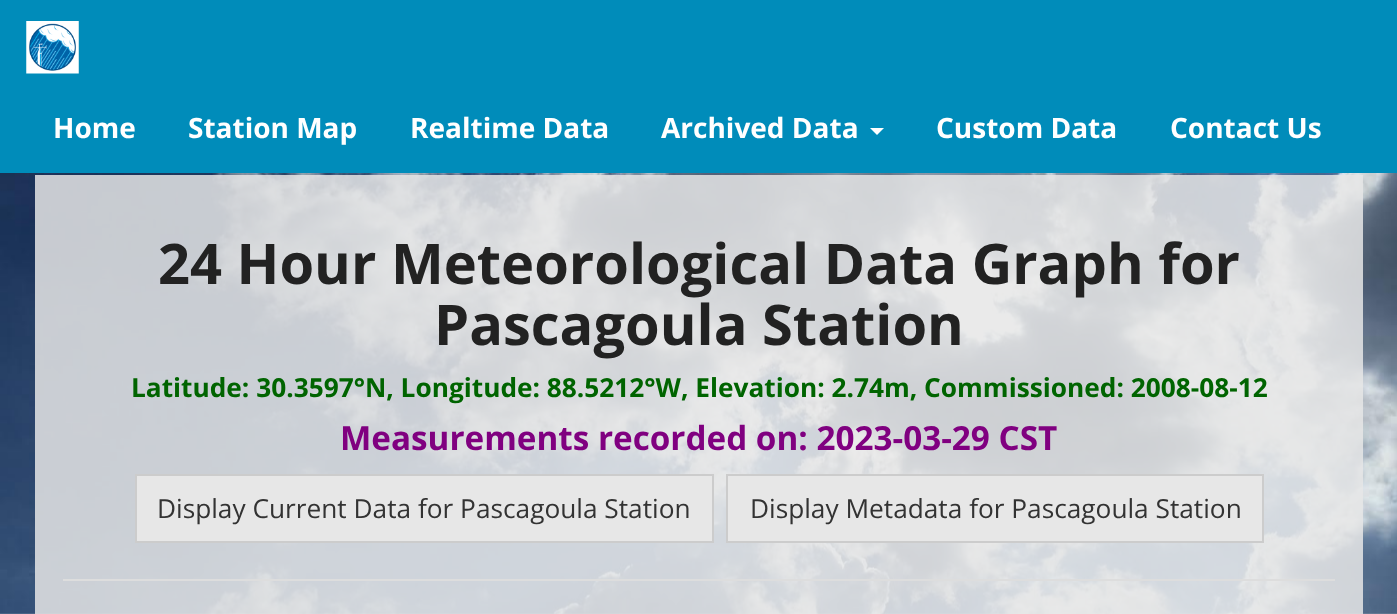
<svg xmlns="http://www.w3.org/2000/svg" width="1397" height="614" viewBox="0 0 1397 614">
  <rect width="100%" height="100%" fill="#fff"/>
  <image x="0" y="173" width="1397" height="441" href="img/1.png"/>
  <path d="M0 0h1397v173H0z" fill="#008cba"/>
  <image x="26" y="21" width="53" height="53" href="img/2.png"/>
  <path d="M870 128H884L877 135Z" fill="#fff"/>
  <path d="M35 175h1328v439H35z" fill="#e6e6e6d9"/>
  <path d="M136 475h577v67H136z" fill="#e7e7e7" stroke="#ccc" stroke-width="2"/>
  <path d="M727 475h536v67H727z" fill="#e7e7e7" stroke="#ccc" stroke-width="2"/>
  <path d="M63 579h1272v2H63z" fill="#ddd"/>
  <g font-family="Open Sans" font-size="28" font-weight="bold" fill="#fff">
    <text x="53" y="138">Home</text>
    <text x="188" y="138">Station Map</text>
    <text x="410" y="138">Realtime Data</text>
    <text x="661" y="138">Archived Data</text>
    <text x="936" y="138">Custom Data</text>
    <text x="1170" y="138">Contact Us</text>
  </g>
  <g font-family="Open Sans" font-size="56" font-weight="bold" fill="#222">
    <text x="158" y="284">24 Hour Meteorological Data Graph for</text>
    <text x="434" y="345">Pascagoula Station</text>
  </g>
  <text x="131" y="397" font-family="Open Sans" font-size="26.25" font-weight="bold" fill="#006400">Latitude: 30.3597°N, Longitude: 88.5212°W, Elevation: 2.74m, Commissioned: 2008-08-12</text>
  <text x="340" y="450" font-family="Open Sans" font-size="33.25" font-weight="bold" fill="#800080">Measurements recorded on: 2023-03-29 CST</text>
  <g font-family="Open Sans" font-size="26.25" fill="#333">
    <text x="157" y="518">Display Current Data for Pascagoula Station</text>
    <text x="750" y="518">Display Metadata for Pascagoula Station</text>
  </g>
</svg>
